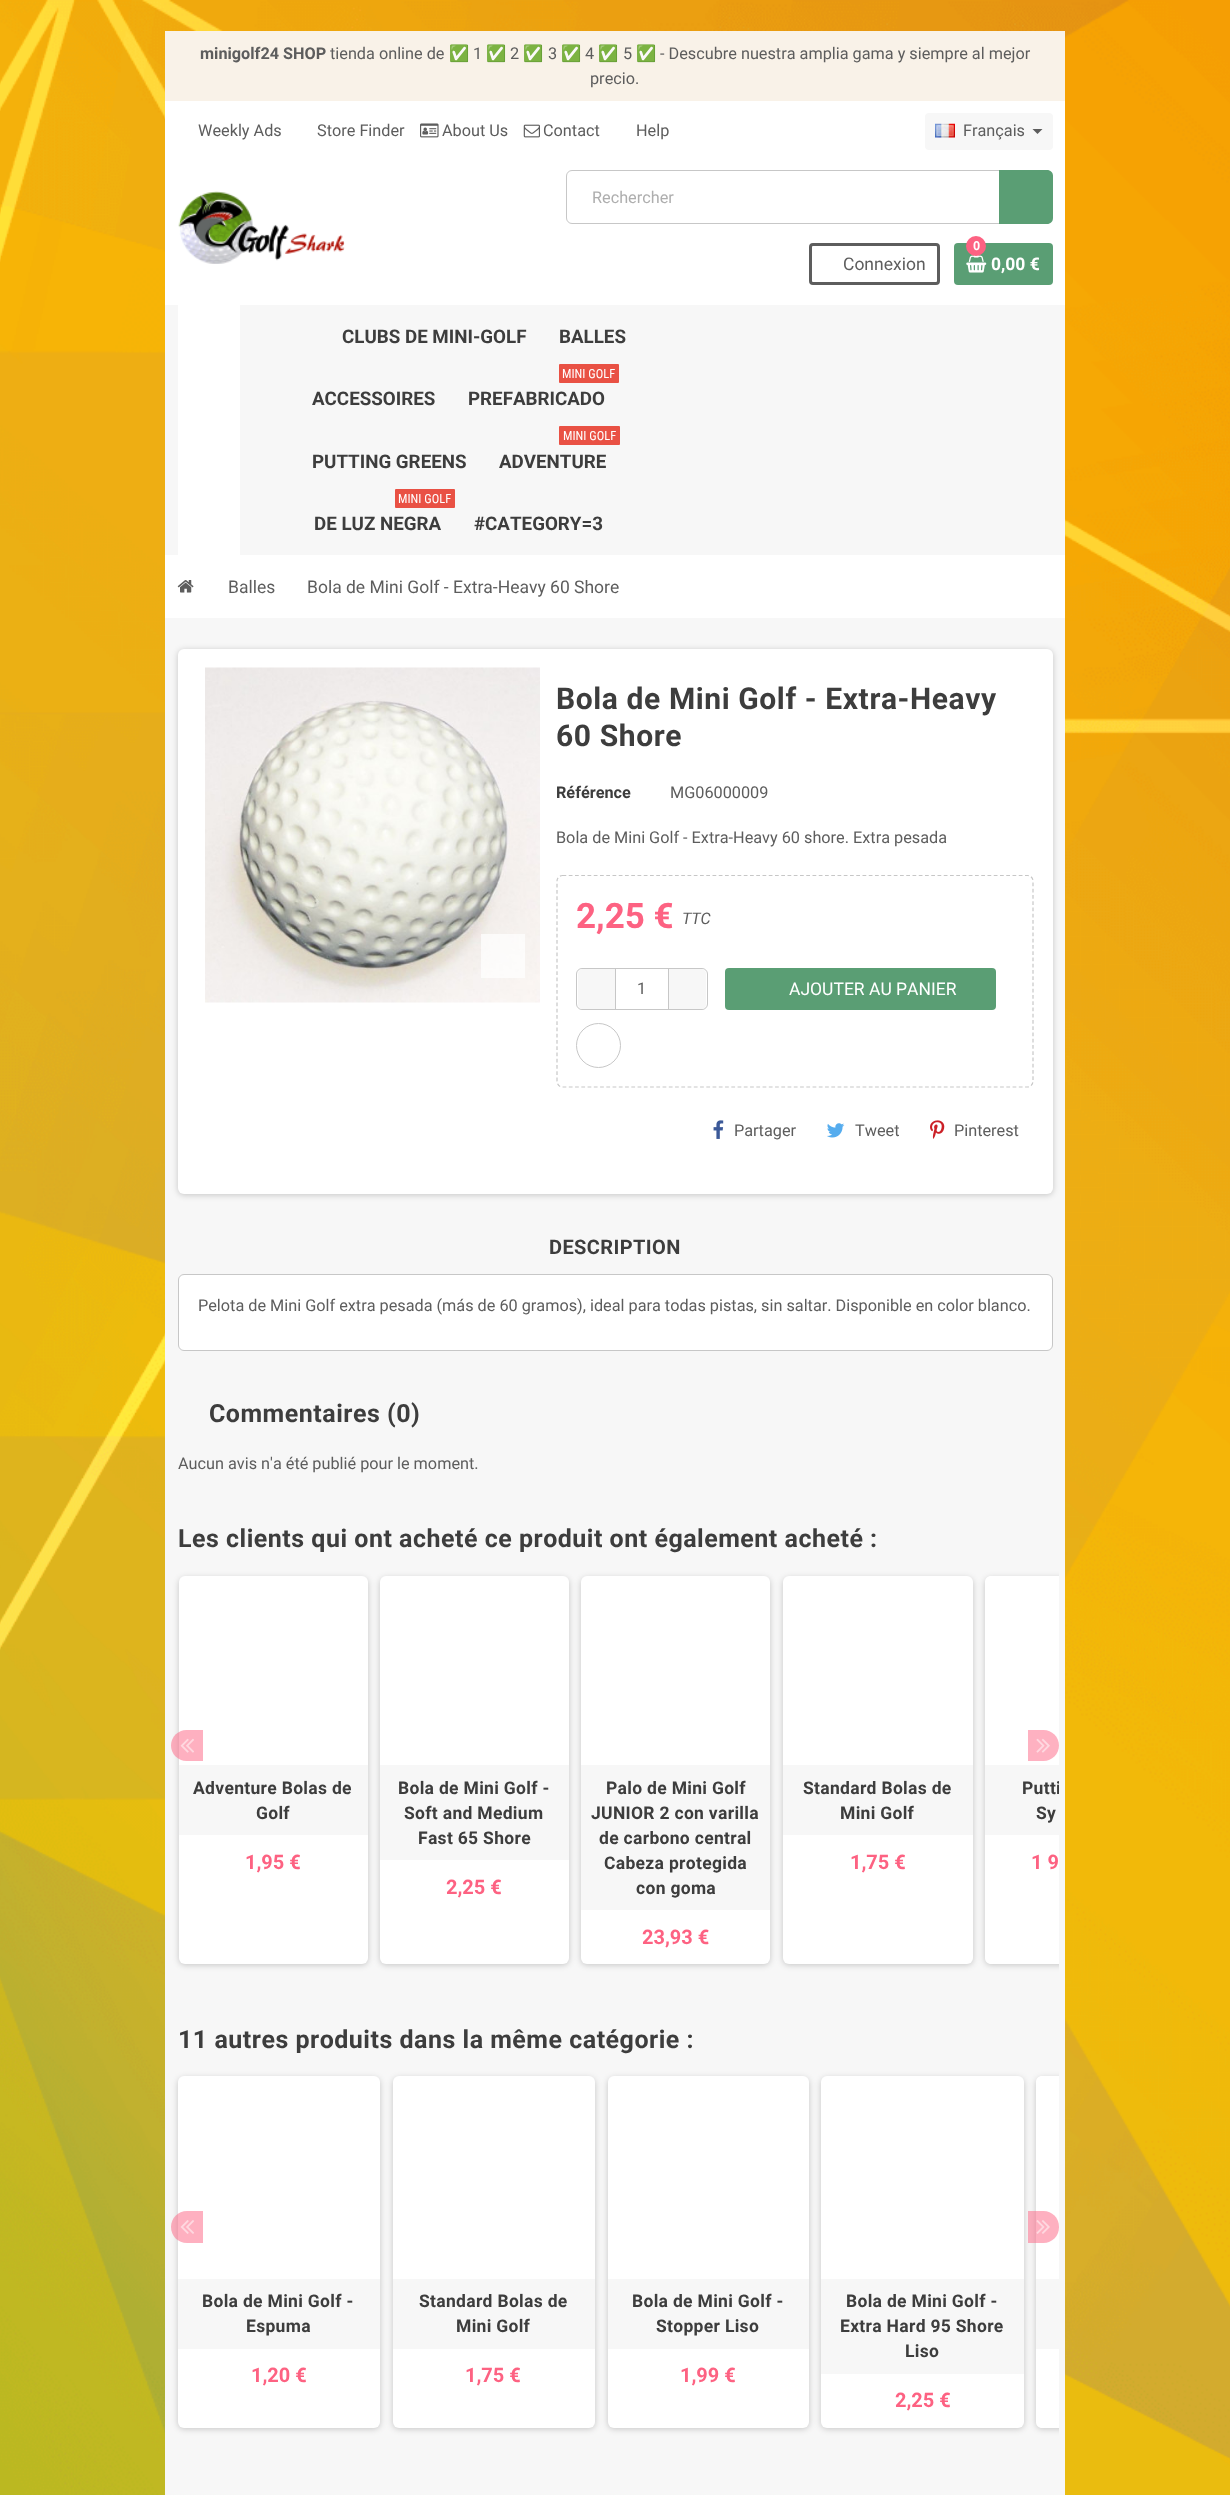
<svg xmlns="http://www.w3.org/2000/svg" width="1230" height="2495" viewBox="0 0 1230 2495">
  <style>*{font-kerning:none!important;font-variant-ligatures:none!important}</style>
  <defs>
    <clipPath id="clip1"><path d="M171 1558h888v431H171z"/></clipPath>
    <clipPath id="clip2"><path d="M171 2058h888v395H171z"/></clipPath>
    <clipPath id="clip3"><path d="M171 1558h888v431H171z"/></clipPath>
  </defs>
  <rect width="100%" height="100%" fill="#fff"/>
  <image x="0" y="0" width="1230" height="2495" href="img/1.png"/>
  <path d="M165 101h900v204H165z" fill="#fff"/>
  <path d="M165 31h900v70H165z" fill="#f9f2e8"/>
  <image x="420" y="123" width="19" height="15" href="img/2.png"/>
  <image x="523" y="124" width="17" height="14" href="img/3.png"/>
  <rect x="925" y="113" width="128" height="37" rx="4" fill="#f7f7f7"/>
  <image x="935" y="123" width="20" height="15" href="img/4.png"/>
  <path d="M1032.5 129H1042.5L1037.5 134Z" fill="#5d5d5d"/>
  <image x="178" y="191" width="167" height="73" href="img/5.png"/>
  <rect x="566.5" y="170.5" width="484" height="53" rx="5.5" fill="none" stroke="#c7c7c7"/>
  <path d="M999 170H1047C1050.5 170 1053 172.5 1053 176V218C1053 221.5 1050.5 224 1047 224H999Z" fill="#5a9e74"/>
  <rect x="810.5" y="244.5" width="128" height="39" rx="2.5" fill="none" stroke="#5d5d5d" stroke-width="3"/>
  <rect x="954" y="243" width="99" height="42" rx="4" fill="#5a9e74"/>
  <image x="966" y="255" width="21" height="18" href="img/6.png"/>
  <circle cx="976" cy="246" r="10" fill="#fd6282"/>
  <path d="M165 305h900v250H165z" fill="#f7f7f7"/>
  <path d="M178 305h62v250H178z" fill="#fff"/>
  <rect x="559" y="364" width="60" height="19" rx="1" fill="#e95144"/>
  <rect x="559" y="426" width="61" height="19" rx="1" fill="#e95144"/>
  <rect x="395" y="489" width="60" height="19" rx="1" fill="#e95144"/>
  <path d="M165 618h900v1877H165z" fill="#f7f7f7"/>
  <path d="M165 555h900v63H165z" fill="#fff"/>
  <image x="177" y="580" width="17" height="13" href="img/7.png"/>
  <rect x="178" y="650" width="875" height="545" rx="6" fill="#00000033" filter="blur(3px)"/>
  <rect x="178" y="649" width="875" height="545" rx="6" fill="#fff"/>
  <image x="205" y="667" width="335" height="336" href="img/8.png"/>
  <path d="M481 934h44v44H481z" fill="#ffffffb3"/>
  <path d="M562.5 875.5H1027.5C1030.5 875.5 1033 878 1033 881V1081C1033 1084.5 1030.5 1087 1027.5 1087H562.5C559.5 1087 557 1084.5 557 1081V881C557 878 559.5 875.5 562.5 875.5Z" fill="none" stroke="#c7c7c7" stroke-width="1.2" stroke-dasharray="3.75 2.5"/>
  <rect x="576.5" y="968.5" width="131" height="41" rx="5.5" fill="none" stroke="#c7c7c7"/>
  <path d="M583 969H615V1009H583C580 1009 578 1007 578 1004V974C578 971 580 969 583 969Z" fill="#f7f7f7"/>
  <path d="M668 969h1v40H668z" fill="#c7c7c7"/>
  <path d="M615 969h1v40H615z" fill="#c7c7c7"/>
  <path d="M669 969H701C704 969 706 971 706 974V1004C706 1007 704 1009 701 1009H669Z" fill="#f7f7f7"/>
  <rect x="725" y="968" width="271" height="42" rx="4" fill="#5a9e74"/>
  <circle cx="598.5" cy="1045.5" r="22" fill="none" stroke="#c7c7c7"/>
  <image x="713" y="1120" width="11" height="19" href="img/9.png"/>
  <image x="827" y="1123" width="18" height="15" href="img/10.png"/>
  <image x="930" y="1120" width="15" height="19" href="img/11.png"/>
  <rect x="178.5" y="1274.5" width="874" height="76" rx="5.5" fill="#fff" stroke="#c7c7c7"/>
  <rect x="179" y="1578" width="189" height="387" rx="6" fill="#00000033" filter="blur(3px)"/>
  <rect x="179" y="1576" width="189" height="388" rx="6" fill="#fff"/>
  <path d="M186.5 1730H203V1761H186.5C178 1761 171 1754 171 1745.5C171 1737 178 1730 186.5 1730Z" fill="#fd628280"/>
  <image x="180" y="1738" width="14" height="15" href="img/12.png"/>
  <g clip-path="url(#clip1)">
    <rect x="985" y="1578" width="189" height="387" rx="6" fill="#00000033" filter="blur(3px)"/>
  </g>
  <path d="M991 1576H1059V1964H991C987.5 1964 985 1961.5 985 1958V1582C985 1578.5 987.5 1576 991 1576Z" fill="#fff"/>
  <path d="M1028 1730H1043.5C1052 1730 1059 1737 1059 1745.5C1059 1754 1052 1761 1043.5 1761H1028Z" fill="#feb1c1"/>
  <image x="1036" y="1738" width="14" height="15" href="img/13.png"/>
  <path d="M179 1765h189v70H179z" fill="#f7f7f7"/>
  <rect x="380" y="1578" width="189" height="387" rx="6" fill="#00000033" filter="blur(3px)"/>
  <rect x="380" y="1576" width="189" height="388" rx="6" fill="#fff"/>
  <path d="M380 1765h189v95H380z" fill="#f7f7f7"/>
  <rect x="581" y="1578" width="189" height="387" rx="6" fill="#00000033" filter="blur(3px)"/>
  <rect x="581" y="1576" width="189" height="388" rx="6" fill="#fff"/>
  <path d="M581 1765h189v145H581z" fill="#f7f7f7"/>
  <rect x="783" y="1578" width="190" height="387" rx="6" fill="#00000033" filter="blur(3px)"/>
  <rect x="783" y="1576" width="190" height="388" rx="6" fill="#fff"/>
  <path d="M783 1765h190v70H783z" fill="#f7f7f7"/>
  <path d="M985 1765h74v70H985z" fill="#f7f7f7"/>
  <rect x="178" y="2078" width="202" height="351" rx="6" fill="#00000033" filter="blur(3px)"/>
  <rect x="178" y="2076" width="202" height="352" rx="6" fill="#fff"/>
  <path d="M187 2211H203V2243H187C178 2243 171 2236 171 2227C171 2218 178 2211 187 2211Z" fill="#fd628280"/>
  <image x="180" y="2220" width="14" height="14" href="img/14.png"/>
  <rect x="821" y="2078" width="203" height="351" rx="6" fill="#00000033" filter="blur(3px)"/>
  <g clip-path="url(#clip2)">
    <rect x="1036" y="2078" width="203" height="351" rx="6" fill="#00000033" filter="blur(3px)"/>
  </g>
  <path d="M1042 2076H1059V2428H1042C1038.5 2428 1036 2425.5 1036 2422V2082C1036 2078.5 1038.5 2076 1042 2076Z" fill="#fff"/>
  <path d="M1028 2211H1043.5C1052 2211 1059 2218 1059 2226.5V2227.5C1059 2236 1052 2243 1043.5 2243H1028Z" fill="#fd628280"/>
  <image x="1036" y="2220" width="14" height="14" href="img/15.png"/>
  <path d="M178 2279h202v70H178z" fill="#f7f7f7"/>
  <rect x="393" y="2078" width="202" height="351" rx="6" fill="#00000033" filter="blur(3px)"/>
  <rect x="393" y="2076" width="202" height="352" rx="6" fill="#fff"/>
  <path d="M393 2279h202v70H393z" fill="#f7f7f7"/>
  <rect x="608" y="2078" width="201" height="351" rx="6" fill="#00000033" filter="blur(3px)"/>
  <rect x="608" y="2076" width="201" height="352" rx="6" fill="#fff"/>
  <path d="M608 2279h201v70H608z" fill="#f7f7f7"/>
  <rect x="821" y="2076" width="203" height="352" rx="6" fill="#fff"/>
  <path d="M821 2279h203v95H821z" fill="#f7f7f7"/>
  <path d="M1036 2279h23v70H1036z" fill="#f7f7f7"/>
  <text x="200" y="59" font-family="Roboto" font-size="16.25" font-weight="bold" fill="#5d5d5d">minigolf24 SHOP</text>
  <text x="330" y="59" font-family="Roboto" font-size="16.25" fill="#5d5d5d">tienda online de</text>
  <text x="449" y="59" font-family="Noto Color Emoji" font-size="16.25" fill="#5d5d5d">✅</text>
  <text x="473" y="59" font-family="Roboto" font-size="16.25" fill="#5d5d5d">1</text>
  <text x="486" y="59" font-family="Noto Color Emoji" font-size="16.25" fill="#5d5d5d">✅</text>
  <text x="510" y="59" font-family="Roboto" font-size="16.25" fill="#5d5d5d">2</text>
  <text x="523" y="59" font-family="Noto Color Emoji" font-size="16.25" fill="#5d5d5d">✅</text>
  <text x="548" y="59" font-family="Roboto" font-size="16.25" fill="#5d5d5d">3</text>
  <text x="561" y="59" font-family="Noto Color Emoji" font-size="16.25" fill="#5d5d5d">✅</text>
  <text x="585" y="59" font-family="Roboto" font-size="16.25" fill="#5d5d5d">4</text>
  <text x="598" y="59" font-family="Noto Color Emoji" font-size="16.25" fill="#5d5d5d">✅</text>
  <text x="623" y="59" font-family="Roboto" font-size="16.25" fill="#5d5d5d">5</text>
  <text x="636" y="59" font-family="Noto Color Emoji" font-size="16.25" fill="#5d5d5d">✅</text>
  <g font-family="Roboto" font-size="16.25" fill="#5d5d5d">
    <text x="660" y="59">- Descubre nuestra amplia gama y siempre al mejor</text>
    <text x="590" y="84">precio.</text>
    <text x="198" y="136">Weekly Ads</text>
    <text x="317" y="136">Store Finder</text>
    <text x="442" y="136">About Us</text>
    <text x="543" y="136">Contact</text>
    <text x="636" y="136">Help</text>
    <text x="963" y="136">Français</text>
  </g>
  <text x="592" y="203" font-family="Roboto" font-size="16.25" fill="#aeaeae">Rechercher</text>
  <text x="843" y="270" font-family="Roboto" font-size="17.5" fill="#5d5d5d">Connexion</text>
  <text x="973" y="250" font-family="Roboto" font-size="12.5" font-weight="bold" fill="#fff">0</text>
  <text x="991" y="270" font-family="Roboto" font-size="17.5" font-weight="bold" fill="#fff">0,00 €</text>
  <g font-family="'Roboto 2'" font-size="18.75" font-weight="bold" fill="#3d3d3d">
    <text x="342" y="343">CLUBS DE MINI-GOLF</text>
    <text x="559" y="343">BALLES</text>
    <text x="312" y="405">ACCESSOIRES</text>
  </g>
  <text x="562" y="378" font-family="Roboto Condensed" font-size="12.5" fill="#fff">MINI GOLF</text>
  <g font-family="'Roboto 2'" font-size="18.75" font-weight="bold" fill="#3d3d3d">
    <text x="468" y="405">PREFABRICADO</text>
    <text x="312" y="468">PUTTING GREENS</text>
  </g>
  <text x="563" y="440" font-family="Roboto Condensed" font-size="12.5" fill="#fff">MINI GOLF</text>
  <text x="499" y="468" font-family="'Roboto 2'" font-size="18.75" font-weight="bold" fill="#3d3d3d">ADVENTURE</text>
  <text x="398" y="503" font-family="Roboto Condensed" font-size="12.5" fill="#fff">MINI GOLF</text>
  <g font-family="'Roboto 2'" font-size="18.75" font-weight="bold" fill="#3d3d3d">
    <text x="314" y="530">DE LUZ NEGRA</text>
    <text x="474" y="530">#CATEGORY=3</text>
  </g>
  <g font-family="Roboto" font-size="17.5" fill="#5d5d5d">
    <text x="228" y="593">Balles</text>
    <text x="307" y="593">Bola de Mini Golf - Extra-Heavy 60 Shore</text>
  </g>
  <g font-family="'Roboto 2'" font-size="30" font-weight="bold" letter-spacing="0.6" fill="#3d3d3d">
    <text x="556" y="709">Bola de Mini Golf - Extra-Heavy</text>
    <text x="556" y="746">60 Shore</text>
  </g>
  <text x="556" y="798" font-family="Roboto" font-size="16.25" font-weight="bold" fill="#3d3d3d">Référence</text>
  <g font-family="Roboto" font-size="16.25" fill="#5d5d5d">
    <text x="670" y="798">MG06000009</text>
    <text x="556" y="843">Bola de Mini Golf - Extra-Heavy 60 shore. Extra pesada</text>
  </g>
  <text x="576" y="928" font-family="Roboto" font-size="35" font-weight="bold" fill="#fd6282">2,25 €</text>
  <text x="682" y="924" font-family="Roboto" font-size="16" font-style="italic" fill="#5d5d5d">TTC</text>
  <text x="637" y="994" font-family="Roboto" font-size="16.25" fill="#5d5d5d">1</text>
  <text x="789" y="995" font-family="Roboto" font-size="17.5" fill="#fff">AJOUTER AU PANIER</text>
  <g font-family="Roboto" font-size="16.25" fill="#5d5d5d">
    <text x="734" y="1136">Partager</text>
    <text x="855" y="1136">Tweet</text>
    <text x="954" y="1136">Pinterest</text>
  </g>
  <text x="549" y="1254" font-family="'Roboto 2'" font-size="20" font-weight="bold" letter-spacing="0.4" fill="#3d3d3d">DESCRIPTION</text>
  <text x="198" y="1311" font-family="Roboto" font-size="16.25" fill="#5d5d5d">Pelota de Mini Golf extra pesada (más de 60 gramos), ideal para todas pistas, sin saltar. Disponible en color blanco.</text>
  <text x="209" y="1422" font-family="'Roboto 2'" font-size="25" font-weight="bold" letter-spacing="0.5" fill="#3d3d3d">Commentaires (0)</text>
  <text x="178" y="1469" font-family="Roboto" font-size="16.25" fill="#5d5d5d">Aucun avis n'a été publié pour le moment.</text>
  <text x="178" y="1547" font-family="'Roboto 2'" font-size="25" font-weight="bold" letter-spacing="0.5" fill="#3d3d3d">Les clients qui ont acheté ce produit ont également acheté :</text>
  <g font-family="Roboto" font-size="17.5" font-weight="bold" letter-spacing="0.3" fill="#3d3d3d">
    <text x="193" y="1794">Adventure Bolas de</text>
    <text x="256" y="1819">Golf</text>
  </g>
  <text x="245" y="1869" font-family="Roboto" font-size="20" font-weight="bold" fill="#fd6282">1,95 €</text>
  <g font-family="Roboto" font-size="17.5" font-weight="bold" letter-spacing="0.3" fill="#3d3d3d">
    <text x="398" y="1794">Bola de Mini Golf -</text>
    <text x="404" y="1819">Soft and Medium</text>
    <text x="418" y="1844">Fast 65 Shore</text>
  </g>
  <text x="446" y="1894" font-family="Roboto" font-size="20" font-weight="bold" fill="#fd6282">2,25 €</text>
  <g font-family="Roboto" font-size="17.5" font-weight="bold" letter-spacing="0.3" fill="#3d3d3d">
    <text x="606" y="1794">Palo de Mini Golf</text>
    <text x="591" y="1819">JUNIOR 2 con varilla</text>
    <text x="599" y="1844">de carbono central</text>
    <text x="604" y="1869">Cabeza protegida</text>
    <text x="636" y="1894">con goma</text>
  </g>
  <text x="642" y="1944" font-family="Roboto" font-size="20" font-weight="bold" fill="#fd6282">23,93 €</text>
  <g font-family="Roboto" font-size="17.5" font-weight="bold" letter-spacing="0.3" fill="#3d3d3d">
    <text x="803" y="1794">Standard Bolas de</text>
    <text x="840" y="1819">Mini Golf</text>
  </g>
  <text x="850" y="1869" font-family="Roboto" font-size="20" font-weight="bold" fill="#fd6282">1,75 €</text>
  <g clip-path="url(#clip3)">
    <text x="1022" y="1794" font-family="Roboto" font-size="17.5" font-weight="bold" letter-spacing="0.3" fill="#3d3d3d">Putti</text>
  </g>
  <text x="1036" y="1819" font-family="Roboto" font-size="17.5" font-weight="bold" letter-spacing="0.3" fill="#3d3d3d">Sy</text>
  <text x="1031" y="1869" font-family="Roboto" font-size="20" font-weight="bold" fill="#fd6282">1 9</text>
  <text x="178" y="2048" font-family="'Roboto 2'" font-size="25" font-weight="bold" letter-spacing="0.5" fill="#3d3d3d">11 autres produits dans la même catégorie :</text>
  <g font-family="Roboto" font-size="17.5" font-weight="bold" letter-spacing="0.3" fill="#3d3d3d">
    <text x="202" y="2307">Bola de Mini Golf -</text>
    <text x="246" y="2332">Espuma</text>
  </g>
  <text x="251" y="2382" font-family="Roboto" font-size="20" font-weight="bold" fill="#fd6282">1,20 €</text>
  <g font-family="Roboto" font-size="17.5" font-weight="bold" letter-spacing="0.3" fill="#3d3d3d">
    <text x="419" y="2307">Standard Bolas de</text>
    <text x="456" y="2332">Mini Golf</text>
  </g>
  <text x="465" y="2382" font-family="Roboto" font-size="20" font-weight="bold" fill="#fd6282">1,75 €</text>
  <g font-family="Roboto" font-size="17.5" font-weight="bold" letter-spacing="0.3" fill="#3d3d3d">
    <text x="632" y="2307">Bola de Mini Golf -</text>
    <text x="656" y="2332">Stopper Liso</text>
  </g>
  <text x="680" y="2382" font-family="Roboto" font-size="20" font-weight="bold" fill="#fd6282">1,99 €</text>
  <g font-family="Roboto" font-size="17.5" font-weight="bold" letter-spacing="0.3" fill="#3d3d3d">
    <text x="846" y="2307">Bola de Mini Golf -</text>
    <text x="840" y="2332">Extra Hard 95 Shore</text>
    <text x="905" y="2357">Liso</text>
  </g>
  <text x="895" y="2407" font-family="Roboto" font-size="20" font-weight="bold" fill="#fd6282">2,25 €</text>
</svg>
